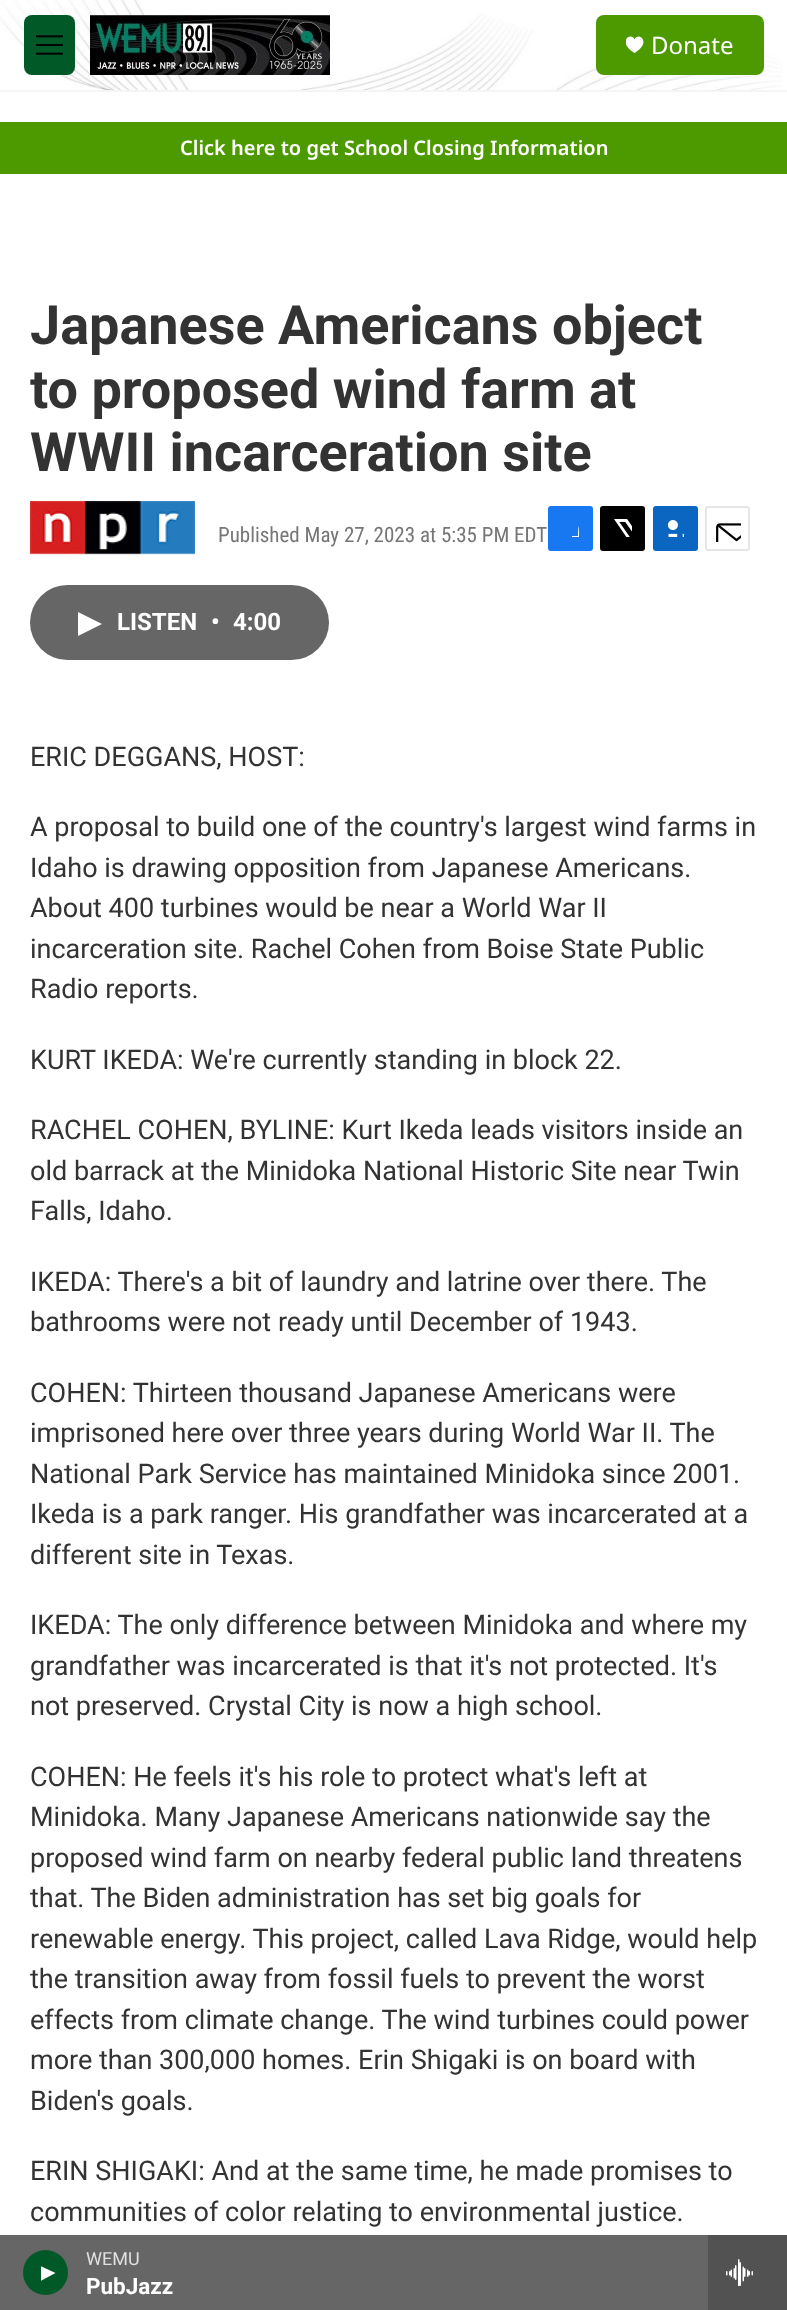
<svg xmlns="http://www.w3.org/2000/svg" width="787" height="2310" viewBox="0 0 787 2310">
  <defs>
    <clipPath id="clip1"><path d="M626 36h18v18H626z"/></clipPath>
    <clipPath id="clip2"><path d="M41 2265h15v17H41z"/></clipPath>
    <clipPath id="clip3"><path d="M561 519h18v18H561z"/></clipPath>
  </defs>
  <rect width="100%" height="100%" fill="#fff"/>
  <path d="M0 90h787v2H0z" fill="#f5f5f5"/>
  <image x="0" y="0" width="782" height="90" href="img/1.png"/>
  <rect x="24" y="15" width="51" height="60" rx="8" fill="#025928"/>
  <image x="36" y="35" width="27" height="20" href="img/2.png"/>
  <image x="90" y="15" width="240" height="60" href="img/3.png"/>
  <rect x="596" y="15" width="168" height="60" rx="8" fill="#4d9900"/>
  <g clip-path="url(#clip1)">
    <path d="M634.5 39.5C631.5 31.5 616 41.5 634.5 53C653 41.5 637.5 31.5 634.5 39.5Z" fill="#fff"/>
  </g>
  <path d="M0 2235h708v75H0z" fill="#666"/>
  <circle cx="45.5" cy="2272.5" r="22.5" fill="#025928"/>
  <g clip-path="url(#clip2)">
    <path d="M40.5 2266L55.5 2273L40.5 2281Z" fill="#fff"/>
  </g>
  <path d="M708 2235h79v75H708z" fill="#525252"/>
  <image x="726" y="2259" width="27" height="27" href="img/4.png"/>
  <path d="M0 122h787v52H0z" fill="#4d9a00"/>
  <image x="30" y="501" width="165" height="54" href="img/5.png"/>
  <rect x="548" y="506" width="45" height="45" rx="3" fill="#1778f2"/>
  <g clip-path="url(#clip3)">
    <path d="M586 551H578V543H572V536H578C578 523.5 580 518 593 520V527C584.5 527 586 528.5 586 536H593L592 543H586Z" fill="#fff"/>
  </g>
  <rect x="600" y="506" width="45" height="45" rx="3" fill="#000"/>
  <image x="614" y="519" width="18" height="18" href="img/6.png"/>
  <rect x="653" y="506" width="45" height="45" rx="3" fill="#0a66c1"/>
  <image x="667" y="520" width="17" height="17" href="img/7.png"/>
  <rect x="706" y="507" width="43" height="43" rx="2" fill="none" stroke="#e6e6e6" stroke-width="2"/>
  <image x="716" y="523" width="25" height="19" href="img/8.png"/>
  <rect x="30" y="585" width="299" height="75" rx="37.5" fill="#666"/>
  <path d="M78 612L102 624L78 636Z" fill="#fff"/>
  <text x="651" y="54" font-family="Noto Sans" font-size="24" fill="#fff">Donate</text>
  <text x="86" y="2265" font-family="Roboto" font-size="18" fill="#e0e0e0">WEMU</text>
  <text x="86" y="2294" font-family="'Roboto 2'" font-size="22.5" font-weight="bold" fill="#fff">PubJazz</text>
  <text x="180" y="155" font-family="Noto Sans" font-size="20" font-weight="600" fill="#fff">Click here to get School Closing Information</text>
  <g font-family="Roboto" font-size="54" font-weight="bold" fill="#333">
    <text x="30" y="344">Japanese Americans object</text>
    <text x="30" y="408">to proposed wind farm at</text>
    <text x="30" y="471">WWII incarceration site</text>
  </g>
  <text x="218" y="542" font-family="Roboto Condensed" font-size="21" fill="#767676">Published May 27, 2023 at 5:35 PM EDT</text>
  <g font-family="'Roboto 2'" font-size="24" font-weight="bold" fill="#fff">
    <text x="117" y="630">LISTEN</text>
    <text x="211" y="630">•</text>
    <text x="233" y="630">4:00</text>
  </g>
  <g font-family="Roboto" font-size="27" fill="#333">
    <text x="30" y="766">ERIC DEGGANS, HOST:</text>
    <text x="30" y="836">A proposal to build one of the country's largest wind farms in</text>
    <text x="30" y="877">Idaho is drawing opposition from Japanese Americans.</text>
    <text x="30" y="917">About 400 turbines would be near a World War II</text>
    <text x="30" y="958">incarceration site. Rachel Cohen from Boise State Public</text>
    <text x="30" y="998">Radio reports.</text>
    <text x="30" y="1069">KURT IKEDA: We're currently standing in block 22.</text>
    <text x="30" y="1139">RACHEL COHEN, BYLINE: Kurt Ikeda leads visitors inside an</text>
    <text x="30" y="1180">old barrack at the Minidoka National Historic Site near Twin</text>
    <text x="30" y="1220">Falls, Idaho.</text>
    <text x="30" y="1291">IKEDA: There's a bit of laundry and latrine over there. The</text>
    <text x="30" y="1331">bathrooms were not ready until December of 1943.</text>
    <text x="30" y="1402">COHEN: Thirteen thousand Japanese Americans were</text>
    <text x="30" y="1442">imprisoned here over three years during World War II. The</text>
    <text x="30" y="1483">National Park Service has maintained Minidoka since 2001.</text>
    <text x="30" y="1523">Ikeda is a park ranger. His grandfather was incarcerated at a</text>
    <text x="30" y="1564">different site in Texas.</text>
    <text x="30" y="1634">IKEDA: The only difference between Minidoka and where my</text>
    <text x="30" y="1675">grandfather was incarcerated is that it's not protected. It's</text>
    <text x="30" y="1715">not preserved. Crystal City is now a high school.</text>
    <text x="30" y="1786">COHEN: He feels it's his role to protect what's left at</text>
    <text x="30" y="1826">Minidoka. Many Japanese Americans nationwide say the</text>
    <text x="30" y="1867">proposed wind farm on nearby federal public land threatens</text>
    <text x="30" y="1907">that. The Biden administration has set big goals for</text>
    <text x="30" y="1948">renewable energy. This project, called Lava Ridge, would help</text>
    <text x="30" y="1988">the transition away from fossil fuels to prevent the worst</text>
    <text x="30" y="2029">effects from climate change. The wind turbines could power</text>
    <text x="30" y="2069">more than 300,000 homes. Erin Shigaki is on board with</text>
    <text x="30" y="2110">Biden's goals.</text>
    <text x="30" y="2180">ERIN SHIGAKI: And at the same time, he made promises to</text>
    <text x="30" y="2221">communities of color relating to environmental justice.</text>
  </g>
</svg>
